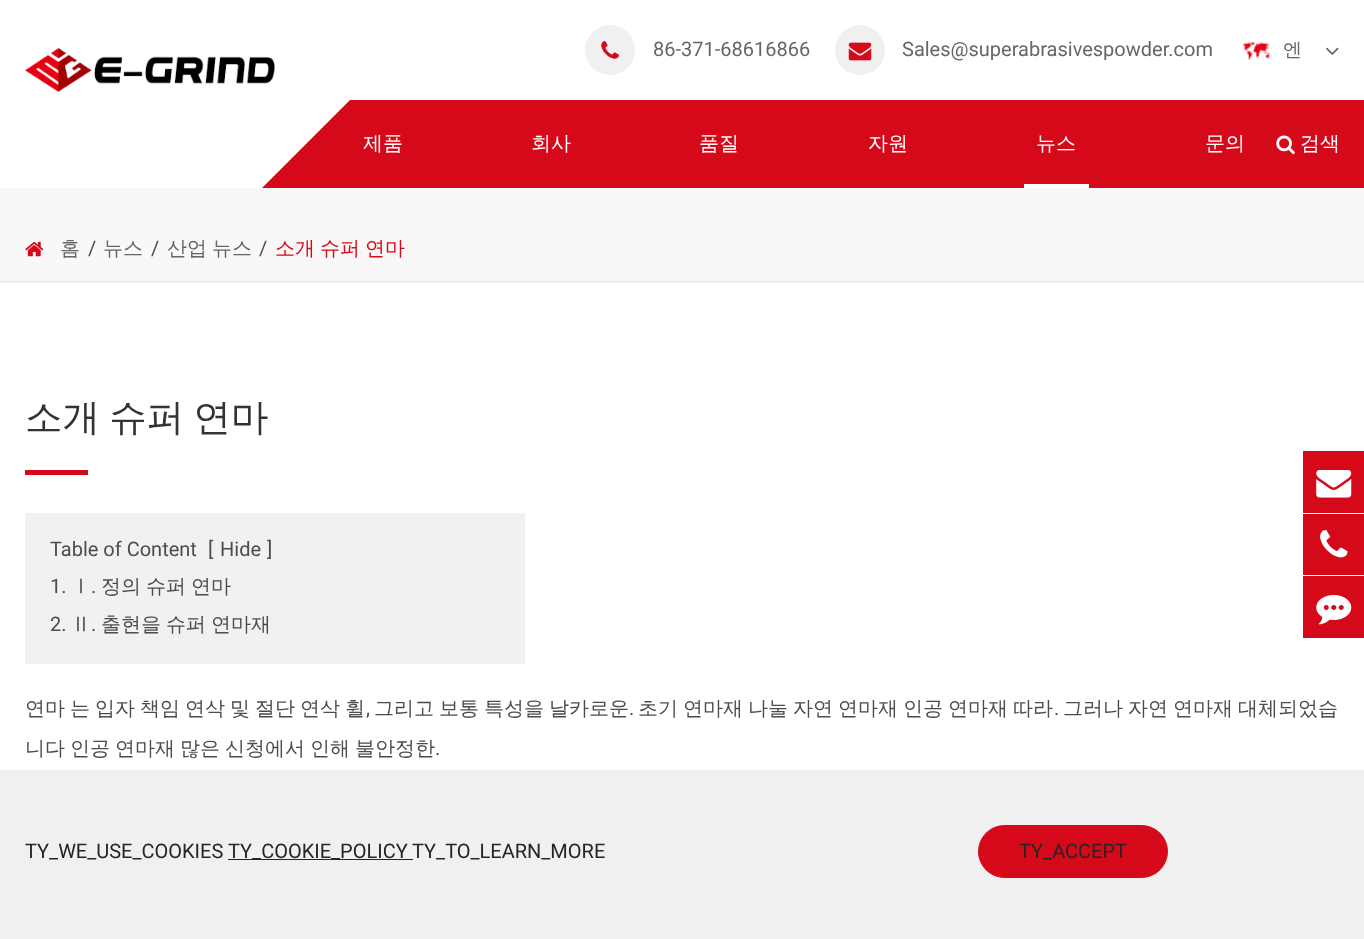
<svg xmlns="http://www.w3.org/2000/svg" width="1364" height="939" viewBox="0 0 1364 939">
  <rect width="100%" height="100%" fill="#fff"/>
  <image x="25" y="47" width="250" height="45" href="img/1.png"/>
  <circle cx="610" cy="50" r="25" fill="#f0f0f0"/>
  <image x="601" y="41" width="18" height="18" href="img/2.png"/>
  <circle cx="860" cy="50" r="25" fill="#f0f0f0"/>
  <image x="848" y="42" width="24" height="19" href="img/3.png"/>
  <image x="1242" y="42" width="28" height="18" href="img/4.png"/>
  <image x="1326" y="47" width="13" height="8" href="img/5.png"/>
  <path d="M350 100h1014v88H350z" fill="#d6091a"/>
  <path d="M350 100V188H262Z" fill="#d6091a"/>
  <path d="M1024 184h65v4H1024z" fill="#fff"/>
  <image x="1276" y="135" width="19" height="20" href="img/6.png"/>
  <path d="M0 188h1364v95H0z" fill="#f8f8f8"/>
  <path d="M0 281h1364v1H0z" fill="#e6e6e6"/>
  <image x="25" y="241" width="19" height="16" href="img/7.png"/>
  <path d="M25 470h63v5H25z" fill="#d6091a"/>
  <path d="M25 513h500v151H25z" fill="#f1f1f1"/>
  <path d="M1303 451h61v62H1303z" fill="#d6091a"/>
  <image x="1316" y="470" width="36" height="28" href="img/8.png"/>
  <path d="M1303 514h61v61H1303z" fill="#d6091a"/>
  <image x="1320" y="530" width="28" height="28" href="img/9.png"/>
  <path d="M1303 576h61v62H1303z" fill="#d6091a"/>
  <image x="1316" y="595" width="36" height="30" href="img/10.png"/>
  <path d="M0 770h1364v169H0z" fill="#f0f0f0"/>
  <path d="M228 859h185v1H228z" fill="#252525"/>
  <rect x="978.5" y="825.5" width="189" height="52" rx="26" fill="#d6091a" stroke="#d6091a"/>
  <g font-family="Roboto" font-size="20" fill="#666">
    <text x="653" y="56">86-371-68616866</text>
    <text x="902" y="56">Sales@superabrasivespowder.com</text>
  </g>
  <text x="1283" y="56" font-family="WenQuanYi Zen Hei" font-size="19" font-weight="500" fill="#666">엔</text>
  <g font-family="WenQuanYi Zen Hei" font-size="20" font-weight="500" fill="#fff">
    <text x="363" y="150">제품</text>
    <text x="531" y="150">회사</text>
    <text x="699" y="150">품질</text>
    <text x="868" y="150">자원</text>
    <text x="1036" y="150">뉴스</text>
    <text x="1205" y="150">문의</text>
    <text x="1300" y="150">검색</text>
  </g>
  <text x="60" y="255" font-family="WenQuanYi Zen Hei" font-size="20" font-weight="500" fill="#666">홈</text>
  <text x="88" y="255" font-family="Roboto" font-size="20" fill="#4c4c4c">/</text>
  <text x="103" y="255" font-family="WenQuanYi Zen Hei" font-size="20" font-weight="500" fill="#666">뉴스</text>
  <text x="151" y="255" font-family="Roboto" font-size="20" fill="#4c4c4c">/</text>
  <text x="167" y="255" word-spacing="-1" font-family="WenQuanYi Zen Hei" font-size="20" font-weight="500" fill="#666">산업 뉴스</text>
  <text x="259" y="255" font-family="Roboto" font-size="20" fill="#4c4c4c">/</text>
  <text x="275" y="255" word-spacing="-1" font-family="WenQuanYi Zen Hei" font-size="20" font-weight="500" fill="#d6091a">소개 슈퍼 연마</text>
  <text x="25" y="430" word-spacing="-2" font-family="WenQuanYi Zen Hei" font-size="37.5" font-weight="500" fill="#333">소개 슈퍼 연마</text>
  <g font-family="Roboto" font-size="20" fill="#4c4c4c">
    <text x="50" y="556">Table of Content</text>
    <text x="208" y="556">[</text>
    <text x="220" y="556">Hide</text>
    <text x="267" y="556">]</text>
    <text x="50" y="593">1.</text>
  </g>
  <text x="71" y="593" font-family="WenQuanYi Zen Hei" font-size="20" font-weight="500" fill="#4c4c4c">Ⅰ</text>
  <text x="91" y="593" font-family="Roboto" font-size="20" fill="#4c4c4c">.</text>
  <text x="101" y="593" word-spacing="-1" font-family="WenQuanYi Zen Hei" font-size="20" font-weight="500" fill="#4c4c4c">정의 슈퍼 연마</text>
  <text x="50" y="631" font-family="Roboto" font-size="20" fill="#4c4c4c">2.</text>
  <text x="71" y="631" font-family="WenQuanYi Zen Hei" font-size="20" font-weight="500" fill="#4c4c4c">Ⅱ</text>
  <text x="91" y="631" font-family="Roboto" font-size="20" fill="#4c4c4c">.</text>
  <g font-family="WenQuanYi Zen Hei" font-size="20" font-weight="500" fill="#4c4c4c">
    <text x="101" y="631" word-spacing="-1">출현을 슈퍼 연마재</text>
    <text x="25" y="715" word-spacing="-1">연마 는 입자 책임 연삭 및 절단 연삭 휠</text>
  </g>
  <text x="366" y="715" font-family="Roboto" font-size="20" fill="#4c4c4c">,</text>
  <text x="374" y="715" word-spacing="-1" font-family="WenQuanYi Zen Hei" font-size="20" font-weight="500" fill="#4c4c4c">그리고 보통 특성을 날카로운</text>
  <text x="629" y="715" font-family="Roboto" font-size="20" fill="#4c4c4c">.</text>
  <text x="638" y="715" word-spacing="-1" font-family="WenQuanYi Zen Hei" font-size="20" font-weight="500" fill="#4c4c4c">초기 연마재 나눌 자연 연마재 인공 연마재 따라</text>
  <text x="1054" y="715" font-family="Roboto" font-size="20" fill="#4c4c4c">.</text>
  <g font-family="WenQuanYi Zen Hei" font-size="20" font-weight="500" fill="#4c4c4c">
    <text x="1063" y="715" word-spacing="-1">그러나 자연 연마재 대체되었습</text>
    <text x="25" y="755" word-spacing="-1">니다 인공 연마재 많은 신청에서 인해 불안정한</text>
  </g>
  <text x="435" y="755" font-family="Roboto" font-size="20" fill="#4c4c4c">.</text>
  <g font-family="Roboto" font-size="20" fill="#252525">
    <text x="25" y="858">TY_WE_USE_COOKIES</text>
    <text x="228" y="858">TY_COOKIE_POLICY</text>
    <text x="412" y="858">TY_TO_LEARN_MORE</text>
    <text x="1019" y="858">TY_ACCEPT</text>
  </g>
</svg>
